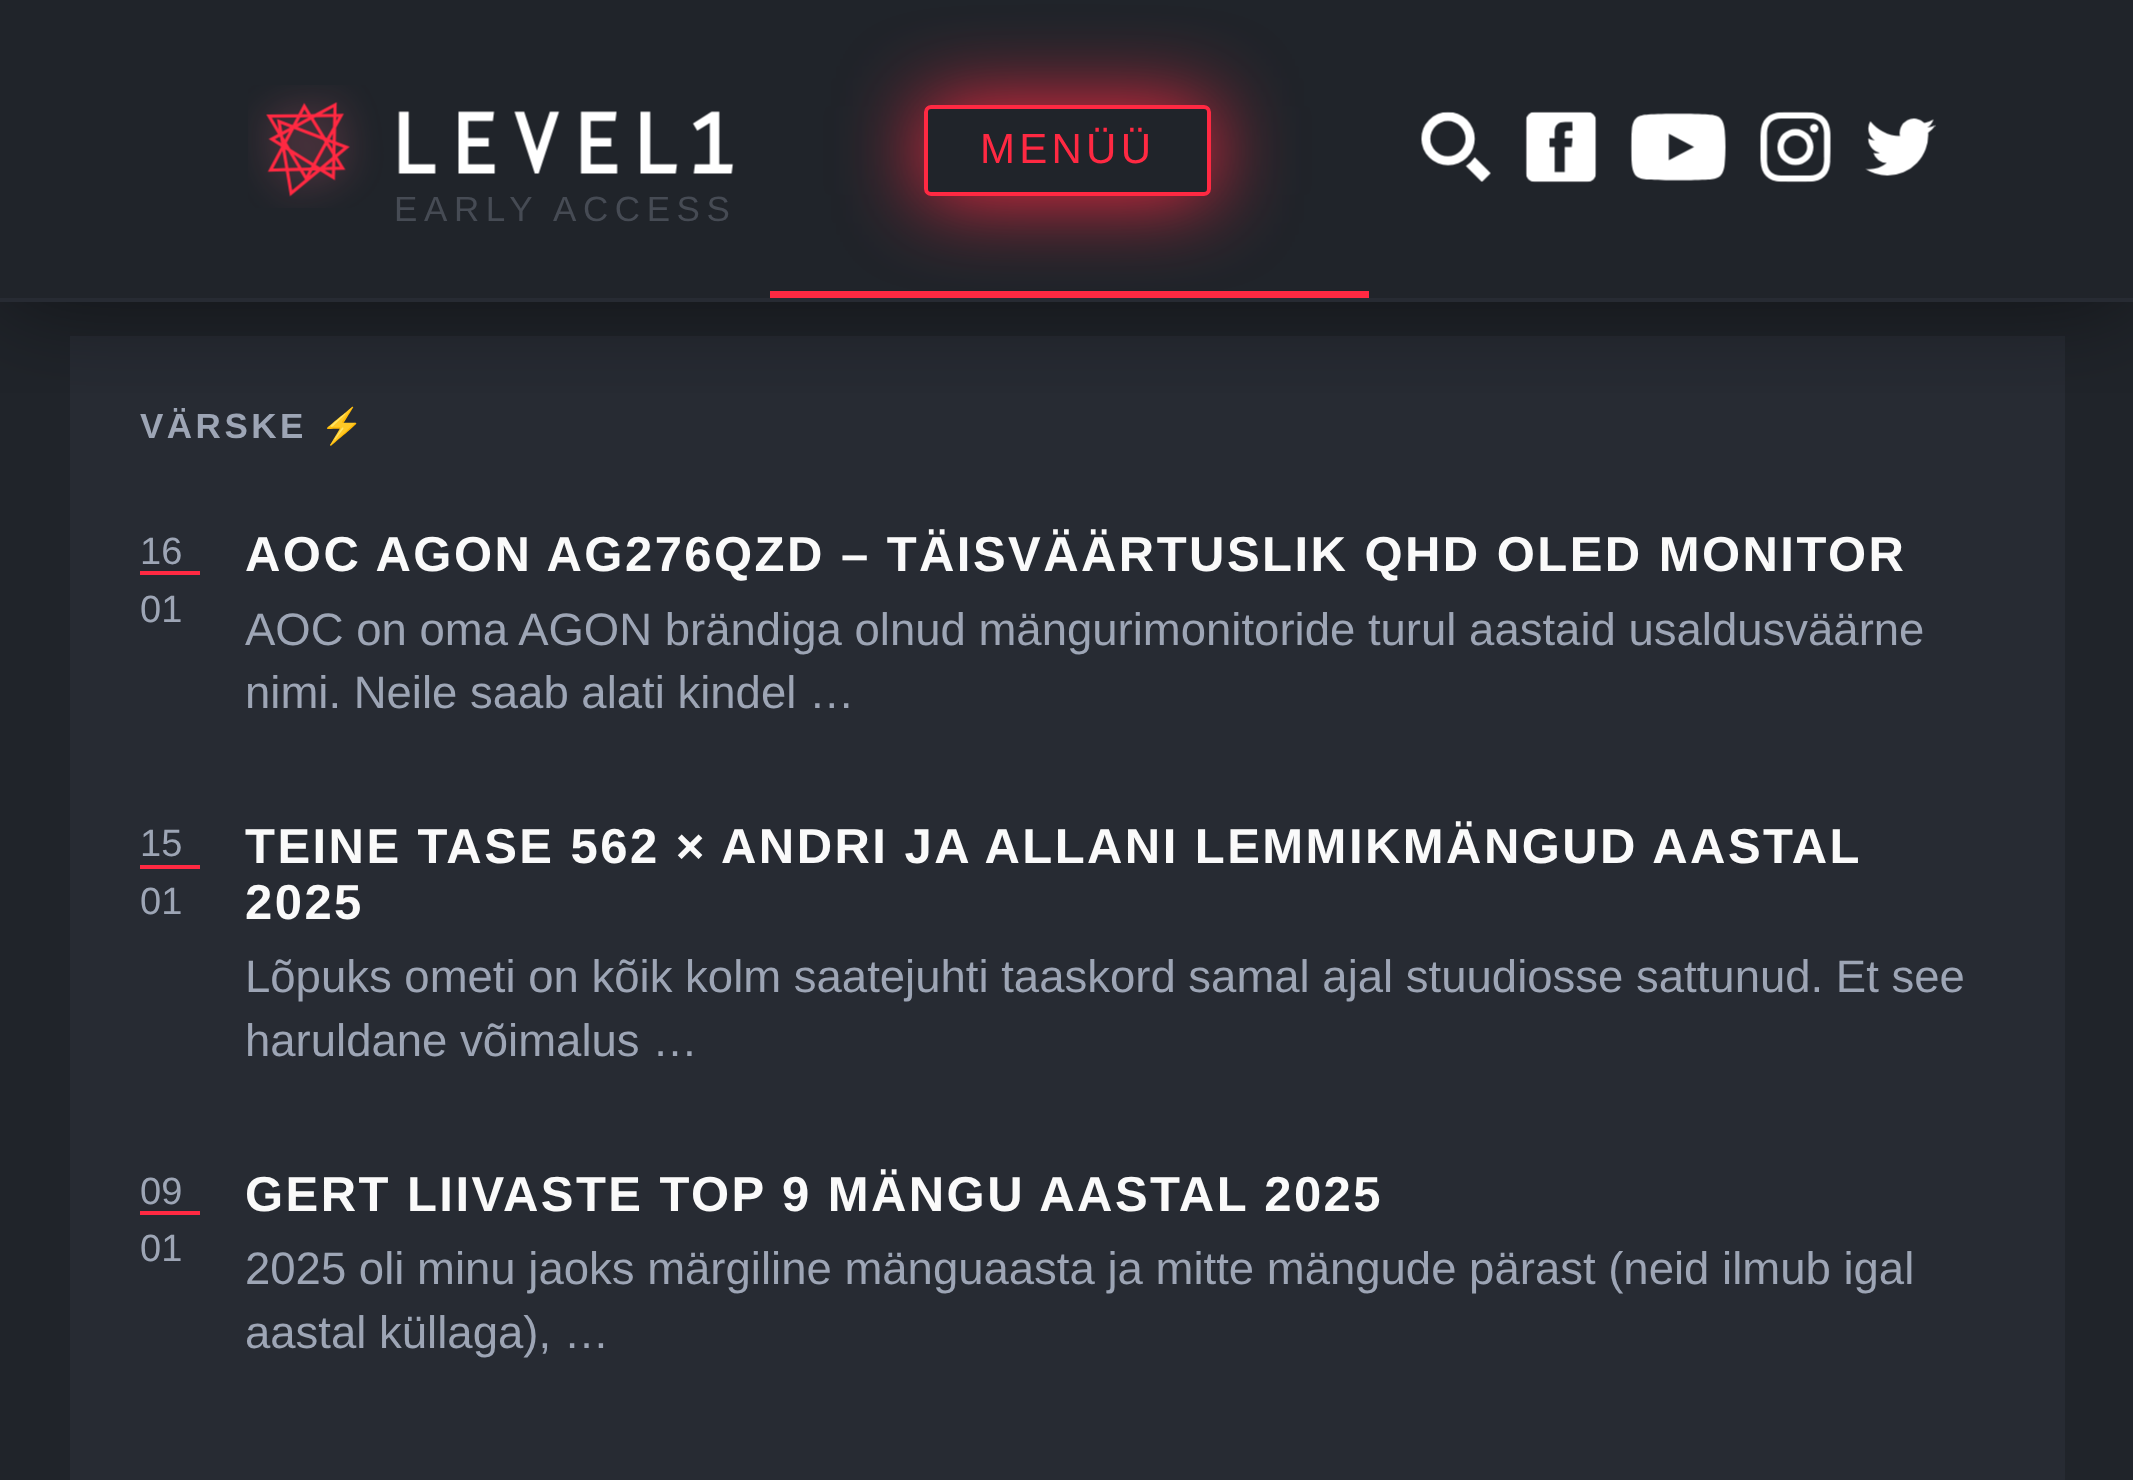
<svg xmlns="http://www.w3.org/2000/svg" width="2133" height="1480" viewBox="0 0 2133 1480">
  <defs>
    <clipPath id="clip1"><path d="M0 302h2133v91H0z"/></clipPath>
    <clipPath id="clip2"><path d="M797 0H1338V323H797ZM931 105H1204C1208 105 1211 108 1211 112V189C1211 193 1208 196 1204 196H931C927 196 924 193 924 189V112C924 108 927 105 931 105Z" clip-rule="evenodd"/></clipPath>
  </defs>
  <rect width="100%" height="100%" fill="#20242a"/>
  <path d="M70 336h1995v1144H70z" fill="#272b33"/>
  <g clip-path="url(#clip1)">
    <path d="M0 0h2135v301H0z" fill="#00000080" filter="blur(52.5px)"/>
  </g>
  <path d="M0 298h2133v4H0z" fill="#272b33"/>
  <g clip-path="url(#clip2)">
    <rect x="924" y="105" width="287" height="91" rx="7" fill="#ff2942" filter="blur(42px)"/>
  </g>
  <rect x="926" y="107" width="283" height="87" rx="5" fill="none" stroke="#ff2942" stroke-width="4"/>
  <image x="1421" y="111" width="70" height="71" href="img/1.png"/>
  <image x="1525" y="111" width="72" height="72" href="img/2.png"/>
  <image x="1630" y="113" width="96" height="68" href="img/3.png"/>
  <image x="1760" y="111" width="71" height="72" href="img/4.png"/>
  <image x="1865" y="118" width="71" height="58" href="img/5.png"/>
  <image x="248" y="85" width="486" height="123" href="img/6.png"/>
  <path d="M770 291h599v7H770z" fill="#ff2942"/>
  <path d="M140 571h60v4H140z" fill="#ff2942"/>
  <path d="M140 865h60v4H140z" fill="#ff2942"/>
  <path d="M140 1211h60v4H140z" fill="#ff2942"/>
  <text x="980" y="163" font-family="Liberation Sans" font-size="42" letter-spacing="4.25" fill="#ff2942">MENÜÜ</text>
  <text x="394" y="221" font-family="Liberation Sans" font-size="35" letter-spacing="6.6" fill="#464b54">EARLY ACCESS</text>
  <text x="140" y="438" font-family="Liberation Sans" font-size="35" font-weight="bold" letter-spacing="3.5" fill="#9da5b5">VÄRSKE</text>
  <text x="320" y="438" font-family="Noto Color Emoji" font-size="35" font-weight="bold" letter-spacing="3.5" fill="#9da5b5">⚡</text>
  <g font-family="Liberation Sans" font-size="38" fill="#9da5b5">
    <text x="140" y="564">16</text>
    <text x="140" y="622">01</text>
  </g>
  <text x="245" y="571" font-family="Liberation Sans" font-size="49" font-weight="bold" letter-spacing="2.45" fill="#fafafa">AOC AGON AG276QZD – TÄISVÄÄRTUSLIK QHD OLED MONITOR</text>
  <g font-family="Liberation Sans" font-size="45.5" fill="#9da5b5">
    <text x="245" y="645">AOC on oma AGON brändiga olnud mängurimonitoride turul aastaid usaldusväärne</text>
    <text x="245" y="708">nimi. Neile saab alati kindel …</text>
  </g>
  <g font-family="Liberation Sans" font-size="38" fill="#9da5b5">
    <text x="140" y="856">15</text>
    <text x="140" y="914">01</text>
  </g>
  <g font-family="Liberation Sans" font-size="49" font-weight="bold" letter-spacing="2.45" fill="#fafafa">
    <text x="245" y="863">TEINE TASE 562 × ANDRI JA ALLANI LEMMIKMÄNGUD AASTAL</text>
    <text x="245" y="919">2025</text>
  </g>
  <g font-family="Liberation Sans" font-size="45.5" fill="#9da5b5">
    <text x="245" y="992">Lõpuks ometi on kõik kolm saatejuhti taaskord samal ajal stuudiosse sattunud. Et see</text>
    <text x="245" y="1056">haruldane võimalus …</text>
  </g>
  <g font-family="Liberation Sans" font-size="38" fill="#9da5b5">
    <text x="140" y="1204">09</text>
    <text x="140" y="1261">01</text>
  </g>
  <text x="245" y="1211" font-family="Liberation Sans" font-size="49" font-weight="bold" letter-spacing="2.45" fill="#fafafa">GERT LIIVASTE TOP 9 MÄNGU AASTAL 2025</text>
  <g font-family="Liberation Sans" font-size="45.5" fill="#9da5b5">
    <text x="245" y="1284">2025 oli minu jaoks märgiline mänguaasta ja mitte mängude pärast (neid ilmub igal</text>
    <text x="245" y="1348">aastal küllaga), …</text>
  </g>
</svg>
